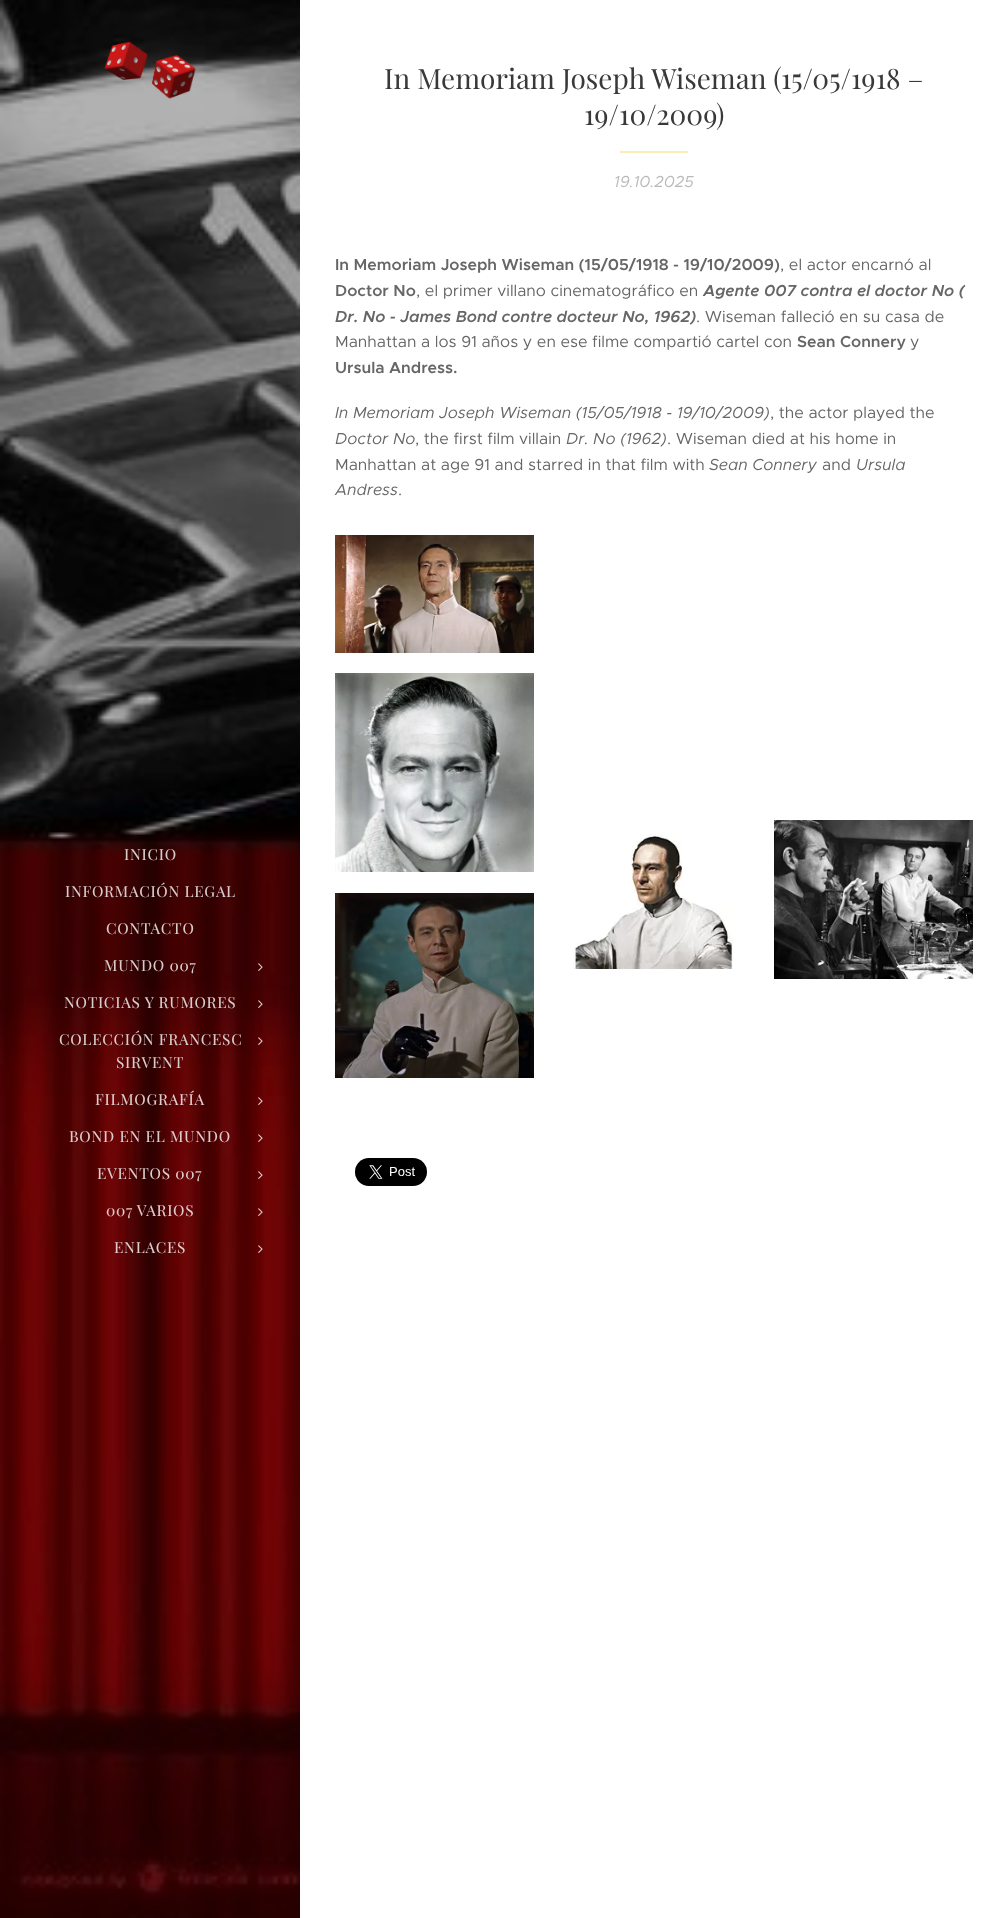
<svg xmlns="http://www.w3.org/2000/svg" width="1008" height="1918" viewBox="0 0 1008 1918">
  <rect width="100%" height="100%" fill="#fff"/>
  <path d="M620 151h68v2H620z" fill="#ffecb3"/>
  <image x="335" y="535" width="199" height="118" href="img/1.png"/>
  <image x="335" y="673" width="199" height="199" href="img/2.png"/>
  <image x="335" y="893" width="199" height="185" href="img/3.png"/>
  <image x="573" y="834" width="161" height="135" href="img/4.png"/>
  <image x="774" y="820" width="199" height="159" href="img/5.png"/>
  <image x="355" y="1158" width="72" height="28" href="img/6.png"/>
  <image x="0" y="0" width="300" height="1918" href="img/7.png"/>
  <image x="104" y="41" width="92" height="58" href="img/8.png"/>
  <image x="258" y="963" width="5" height="8" href="img/9.png"/>
  <image x="258" y="1000" width="5" height="8" href="img/10.png"/>
  <image x="258" y="1037" width="5" height="8" href="img/11.png"/>
  <image x="258" y="1097" width="5" height="8" href="img/12.png"/>
  <image x="258" y="1134" width="5" height="8" href="img/13.png"/>
  <image x="258" y="1171" width="5" height="8" href="img/14.png"/>
  <image x="258" y="1208" width="5" height="8" href="img/14.png"/>
  <image x="258" y="1245" width="5" height="8" href="img/15.png"/>
  <g font-family="Playfair Display" font-size="28" fill="#393939">
    <text x="384" y="89">In Memoriam Joseph Wiseman (15/05/1918 –</text>
    <text x="584" y="125">19/10/2009)</text>
  </g>
  <text x="614" y="187" font-family="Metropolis" font-size="16" font-style="italic" fill="#bababa">19.10.2025</text>
  <text x="335" y="270" font-family="Metropolis" font-size="16" font-weight="600" fill="#666">In Memoriam Joseph Wiseman (15/05/1918 - 19/10/2009)</text>
  <text x="780" y="270" font-family="Metropolis" font-size="16" fill="#666">, el actor encarnó al</text>
  <text x="335" y="296" font-family="Metropolis" font-size="16" font-weight="600" fill="#666">Doctor No</text>
  <text x="416" y="296" font-family="Metropolis" font-size="16" fill="#666">, el primer villano cinematográfico en</text>
  <g font-family="Metropolis" font-size="16" font-weight="600" font-style="italic" fill="#666">
    <text x="703" y="296">Agente 007 contra el doctor No (</text>
    <text x="335" y="322">Dr. No - James Bond contre docteur No, 1962)</text>
  </g>
  <g font-family="Metropolis" font-size="16" fill="#666">
    <text x="696" y="322">. Wiseman falleció en su casa de</text>
    <text x="335" y="347">Manhattan a los 91 años y en ese filme compartió cartel con</text>
  </g>
  <text x="797" y="347" font-family="Metropolis" font-size="16" font-weight="600" fill="#666">Sean Connery</text>
  <text x="910" y="347" font-family="Metropolis" font-size="16" fill="#666">y</text>
  <text x="335" y="373" font-family="Metropolis" font-size="16" font-weight="600" fill="#666">Ursula Andress.</text>
  <text x="335" y="418" font-family="Metropolis" font-size="16" font-style="italic" fill="#666">In Memoriam Joseph Wiseman (15/05/1918 - 19/10/2009)</text>
  <text x="770" y="418" font-family="Metropolis" font-size="16" fill="#666">, the actor played the</text>
  <text x="335" y="444" font-family="Metropolis" font-size="16" font-style="italic" fill="#666">Doctor No</text>
  <text x="415" y="444" font-family="Metropolis" font-size="16" fill="#666">, the first film villain</text>
  <text x="566" y="444" font-family="Metropolis" font-size="16" font-style="italic" fill="#666">Dr. No (1962)</text>
  <g font-family="Metropolis" font-size="16" fill="#666">
    <text x="667" y="444">. Wiseman died at his home in</text>
    <text x="335" y="470">Manhattan at age 91 and starred in that film with</text>
  </g>
  <text x="709" y="470" font-family="Metropolis" font-size="16" font-style="italic" fill="#666">Sean Connery</text>
  <text x="822" y="470" font-family="Metropolis" font-size="16" fill="#666">and</text>
  <g font-family="Metropolis" font-size="16" font-style="italic" fill="#666">
    <text x="856" y="470">Ursula</text>
    <text x="335" y="495">Andress</text>
  </g>
  <text x="398" y="495" font-family="Metropolis" font-size="16" fill="#666">.</text>
  <g font-family="'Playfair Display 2'" font-size="15.25" letter-spacing="0.75" fill="#d6cccc">
    <text x="124" y="860">INICIO</text>
    <text x="65" y="897">INFORMACIÓN LEGAL</text>
    <text x="106" y="934">CONTACTO</text>
    <text x="104" y="971">MUNDO 007</text>
    <text x="64" y="1008">NOTICIAS Y RUMORES</text>
    <text x="59" y="1045">COLECCIÓN FRANCESC</text>
    <text x="116" y="1068">SIRVENT</text>
  </g>
  <g font-family="'Playfair Display 2'" font-size="15.25" letter-spacing="0.75" fill="#ddcccd">
    <text x="95" y="1105">FILMOGRAFÍA</text>
    <text x="69" y="1142">BOND EN EL MUNDO</text>
    <text x="97" y="1179">EVENTOS 007</text>
    <text x="106" y="1216">007 VARIOS</text>
    <text x="114" y="1253">ENLACES</text>
  </g>
</svg>
